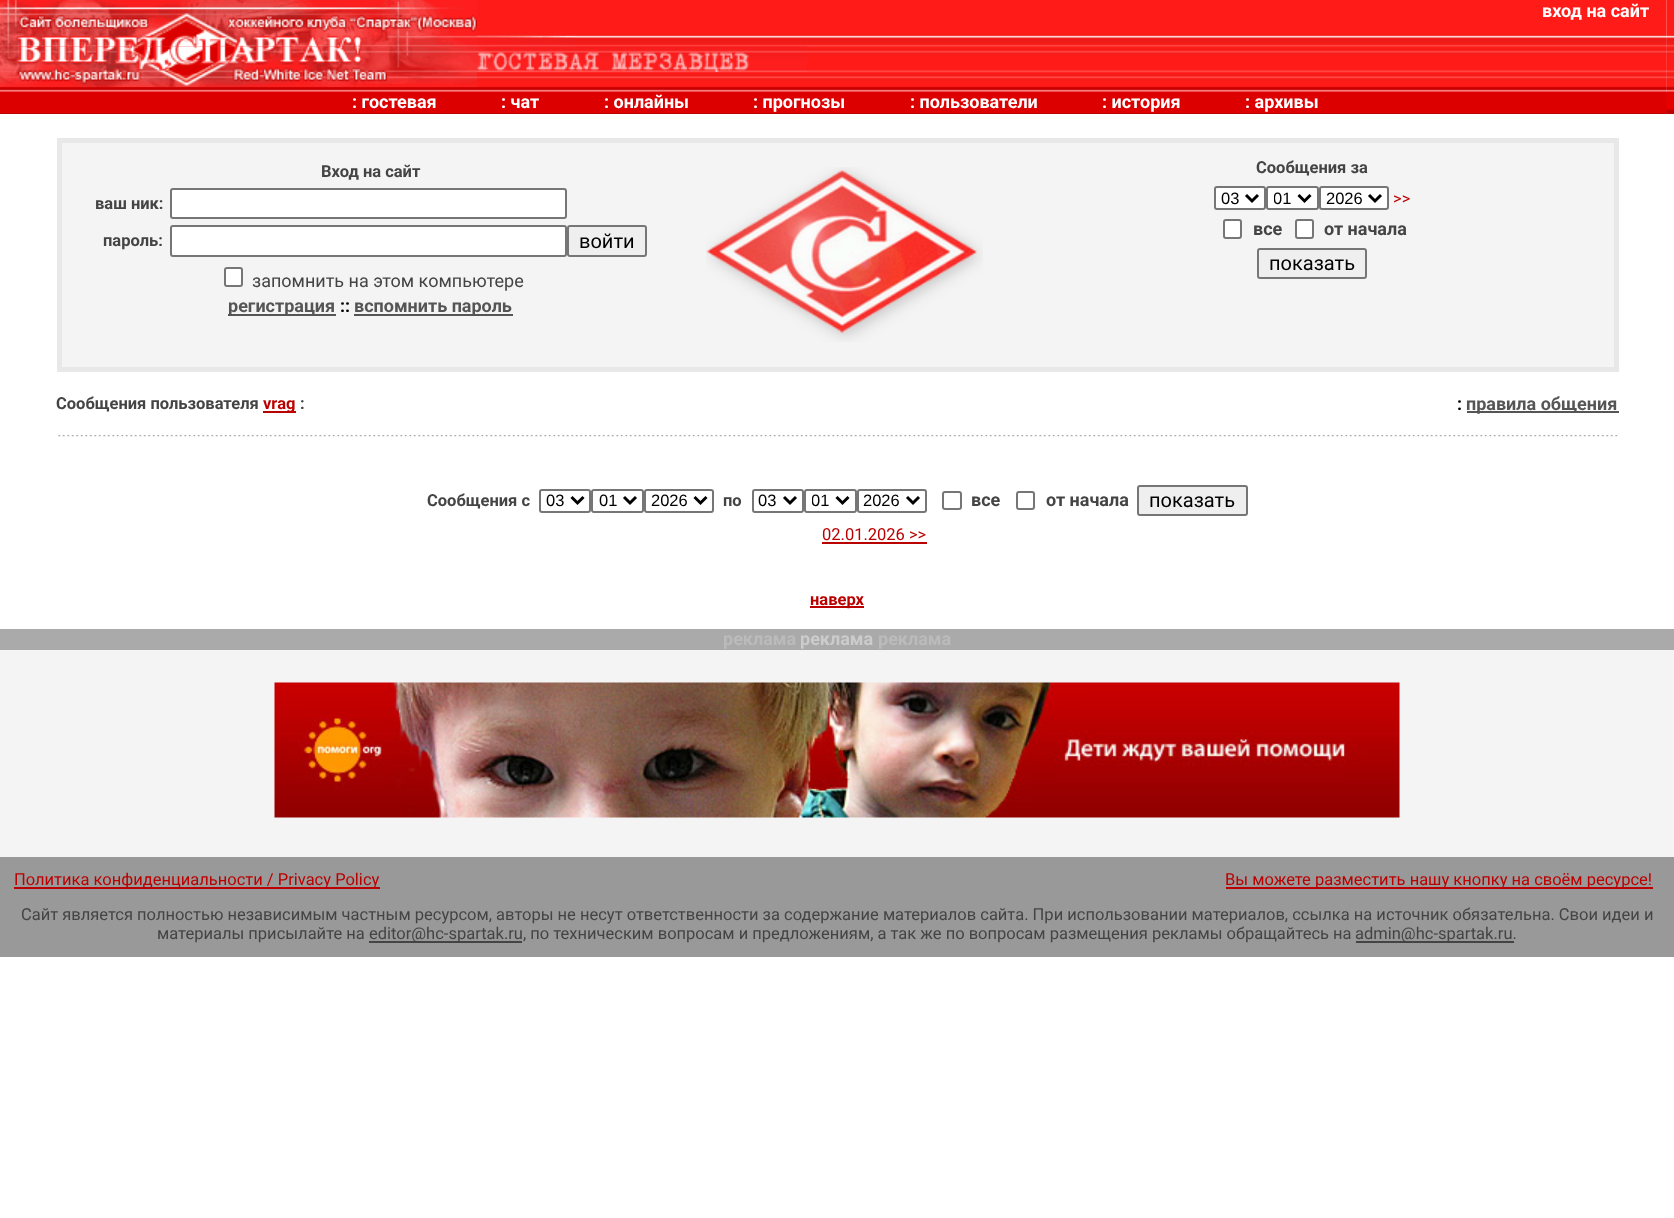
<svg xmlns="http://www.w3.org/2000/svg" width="1674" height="1218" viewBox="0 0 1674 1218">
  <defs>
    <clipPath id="clip1"><path d="M1274 188h19v21H1274z"/></clipPath>
    <clipPath id="clip2"><path d="M812 491h19v21H812z"/></clipPath>
  </defs>
  <rect width="100%" height="100%" fill="#fff"/>
  <image x="0" y="0" width="1667" height="114" href="img/1.png"/>
  <image x="0" y="0" width="477" height="47" href="img/2.png"/>
  <image x="477" y="36" width="98" height="11" href="img/3.png"/>
  <image x="0" y="46" width="477" height="41" href="img/4.png"/>
  <image x="477" y="46" width="330" height="26" href="img/5.png"/>
  <path d="M0 92h1667v21H0z" fill="#d00"/>
  <image x="1666" y="0" width="8" height="114" href="img/6.png"/>
  <image x="1666" y="36" width="1" height="78" href="img/7.png"/>
  <path d="M59.5 140.5h1557v229H59.5z" fill="#f4f4f4" stroke="#e8e8e8" stroke-width="5"/>
  <rect x="171" y="189" width="395" height="29" rx="2" fill="#fff" stroke="#767676" stroke-width="2"/>
  <rect x="171" y="226" width="395" height="30" rx="2" fill="#fff" stroke="#767676" stroke-width="2"/>
  <rect x="568" y="226" width="78" height="30" rx="2" fill="#efefef" stroke="#767676" stroke-width="2"/>
  <rect x="225" y="268" width="17" height="18" rx="2" fill="#fff" stroke="#767676" stroke-width="2"/>
  <path d="M228 314h108v2H228z" fill="#555"/>
  <path d="M354 314h159v2H354z" fill="#555"/>
  <image x="706" y="167" width="277" height="175" href="img/8.png"/>
  <rect x="1215" y="187" width="50" height="22" rx="2" fill="#fff" stroke="#767676" stroke-width="2"/>
  <path d="M1246 195L1252 201L1258 195" fill="none" stroke="#000" stroke-width="3"/>
  <rect x="1267" y="187" width="51" height="22" rx="2" fill="#fff" stroke="#767676" stroke-width="2"/>
  <path d="M1298.5 195L1304.5 201L1310.5 195" fill="none" stroke="#000" stroke-width="3"/>
  <rect x="1320" y="187" width="68" height="22" rx="2" fill="#fff" stroke="#767676" stroke-width="2"/>
  <path d="M1369 195L1375 201L1381 195" fill="none" stroke="#000" stroke-width="3"/>
  <rect x="1224" y="220" width="17" height="18" rx="2" fill="#fff" stroke="#767676" stroke-width="2"/>
  <rect x="1296" y="220" width="17" height="18" rx="2" fill="#fff" stroke="#767676" stroke-width="2"/>
  <rect x="1258" y="249" width="108" height="29" rx="2" fill="#efefef" stroke="#767676" stroke-width="2"/>
  <path d="M263 411h33v2H263z" fill="#b00"/>
  <path d="M1467 411h152v2H1467z" fill="#555"/>
  <image x="58" y="435" width="1560" height="2" href="img/9.png"/>
  <rect x="540" y="490" width="50" height="22" rx="2" fill="none" stroke="#767676" stroke-width="2"/>
  <path d="M571.5 497L577.5 503L583.5 497" fill="none" stroke="#000" stroke-width="3"/>
  <rect x="592" y="490" width="51" height="22" rx="2" fill="none" stroke="#767676" stroke-width="2"/>
  <path d="M624 497L630 503L636 497" fill="none" stroke="#000" stroke-width="3"/>
  <rect x="645" y="490" width="68" height="22" rx="2" fill="none" stroke="#767676" stroke-width="2"/>
  <path d="M694.5 497L700.5 503L706.5 497" fill="none" stroke="#000" stroke-width="3"/>
  <rect x="753" y="490" width="50" height="22" rx="2" fill="none" stroke="#767676" stroke-width="2"/>
  <path d="M784 497L790 503L796 497" fill="none" stroke="#000" stroke-width="3"/>
  <rect x="805" y="490" width="51" height="22" rx="2" fill="none" stroke="#767676" stroke-width="2"/>
  <path d="M836.5 497L842.5 503L848.5 497" fill="none" stroke="#000" stroke-width="3"/>
  <rect x="858" y="490" width="68" height="22" rx="2" fill="none" stroke="#767676" stroke-width="2"/>
  <path d="M907 497L913 503L919 497" fill="none" stroke="#000" stroke-width="3"/>
  <rect x="943" y="492" width="18" height="17" rx="2" fill="none" stroke="#767676" stroke-width="2"/>
  <rect x="1017" y="492" width="17" height="17" rx="2" fill="none" stroke="#767676" stroke-width="2"/>
  <rect x="1138" y="486" width="109" height="29" rx="2" fill="#efefef" stroke="#767676" stroke-width="2"/>
  <path d="M822 542h105v2H822z" fill="#b00"/>
  <path d="M810 606h54v2H810z" fill="#b00"/>
  <path d="M0 629h1674v21H0z" fill="#aaa"/>
  <path d="M0 650h1674v207H0z" fill="#f4f4f4"/>
  <image x="274" y="682" width="1126" height="136" href="img/10.png"/>
  <path d="M0 857h1674v100H0z" fill="#999"/>
  <path d="M14 887h366v2H14z" fill="#b00"/>
  <path d="M1226 887h427v2H1226z" fill="#b00"/>
  <path d="M369 941h153v2H369z" fill="#444"/>
  <path d="M1356 941h158v2H1356z" fill="#444"/>
  <g font-family="Roboto" font-size="18" font-weight="bold" fill="#fff">
    <text x="1542" y="17">вход на сайт</text>
    <text x="352" y="108">: гостевая</text>
    <text x="501" y="108">: чат</text>
    <text x="604" y="108">: онлайны</text>
    <text x="753" y="108">: прогнозы</text>
    <text x="910" y="108">: пользователи</text>
    <text x="1102" y="108">: история</text>
    <text x="1245" y="108">: архивы</text>
  </g>
  <g font-family="Roboto" font-size="16.5" font-weight="bold" fill="#444">
    <text x="321" y="177">Вход на сайт</text>
    <text x="95" y="209">ваш ник:</text>
    <text x="103" y="246">пароль:</text>
  </g>
  <text x="579" y="248" font-family="Roboto" font-size="20" fill="#000">войти</text>
  <text x="252" y="287" font-family="Roboto" font-size="18" fill="#444">запомнить на этом компьютере</text>
  <text x="228" y="312" font-family="Roboto" font-size="18" font-weight="bold" fill="#555">регистрация</text>
  <text x="340" y="312" font-family="Roboto" font-size="18" font-weight="bold" fill="#000">::</text>
  <text x="354" y="312" font-family="Roboto" font-size="18" font-weight="bold" fill="#555">вспомнить пароль</text>
  <text x="1256" y="173" font-family="Roboto" font-size="16.5" font-weight="bold" fill="#444">Сообщения за</text>
  <text x="1221" y="204" font-family="Liberation Sans" font-size="16.5" fill="#000">03</text>
  <g clip-path="url(#clip1)">
    <text x="1273" y="204" font-family="Liberation Sans" font-size="16.5" fill="#000">01</text>
  </g>
  <text x="1326" y="204" font-family="Liberation Sans" font-size="16.5" fill="#000">2026</text>
  <text x="1393" y="204" font-family="Roboto" font-size="16.5" fill="#b00">&gt;&gt;</text>
  <g font-family="Roboto" font-size="18" font-weight="bold" fill="#444">
    <text x="1253" y="235">все</text>
    <text x="1324" y="235">от начала</text>
  </g>
  <text x="1269" y="270" font-family="Roboto" font-size="20" fill="#000">показать</text>
  <text x="56" y="409" font-family="Roboto" font-size="16.5" font-weight="bold" fill="#444">Сообщения пользователя</text>
  <text x="263" y="409" font-family="Roboto" font-size="16.5" font-weight="bold" fill="#b00">vrag</text>
  <text x="300" y="409" font-family="Roboto" font-size="16.5" font-weight="bold" fill="#444">:</text>
  <text x="1457" y="410" font-family="Roboto" font-size="18" font-weight="bold" fill="#000">:</text>
  <text x="1466" y="410" font-family="Roboto" font-size="18" font-weight="bold" fill="#555">правила общения</text>
  <text x="427" y="506" font-family="Roboto" font-size="16.5" font-weight="bold" fill="#444">Сообщения с</text>
  <g font-family="Liberation Sans" font-size="16.5" fill="#000">
    <text x="546" y="506">03</text>
    <text x="599" y="506">01</text>
    <text x="651" y="506">2026</text>
  </g>
  <text x="723" y="506" font-family="Roboto" font-size="16.5" font-weight="bold" fill="#444">по</text>
  <text x="758" y="506" font-family="Liberation Sans" font-size="16.5" fill="#000">03</text>
  <g clip-path="url(#clip2)">
    <text x="811" y="506" font-family="Liberation Sans" font-size="16.5" fill="#000">01</text>
  </g>
  <text x="863" y="506" font-family="Liberation Sans" font-size="16.5" fill="#000">2026</text>
  <g font-family="Roboto" font-size="18" font-weight="bold" fill="#444">
    <text x="971" y="506">все</text>
    <text x="1046" y="506">от начала</text>
  </g>
  <text x="1149" y="507" font-family="Roboto" font-size="20" fill="#000">показать</text>
  <text x="822" y="540" font-family="Roboto" font-size="16.5" fill="#b00">02.01.2026 &gt;&gt;</text>
  <text x="810" y="605" font-family="Roboto" font-size="16.5" font-weight="bold" fill="#b00">наверх</text>
  <text x="723" y="645" font-family="Roboto" font-size="18" font-weight="bold" fill="#bbb">реклама</text>
  <text x="800" y="645" font-family="Roboto" font-size="18" font-weight="bold" fill="#ccc">реклама</text>
  <text x="878" y="645" font-family="Roboto" font-size="18" font-weight="bold" fill="#bbb">реклама</text>
  <g font-family="Roboto" font-size="16.5" fill="#b00">
    <text x="14" y="885">Политика конфиденциальности / Privacy Policy</text>
    <text x="1225" y="885">Вы можете разместить нашу кнопку на своём ресурсе!</text>
  </g>
  <g font-family="Roboto" font-size="16.5" fill="#444">
    <text x="21" y="920">Сайт является полностью независимым частным ресурсом, авторы не несут ответственности за содержание материалов сайта. При использовании материалов, ссылка на источник обязательна. Cвои идеи и</text>
    <text x="157" y="939">материалы присылайте на</text>
    <text x="369" y="939">editor@hc-spartak.ru, по техническим вопросам и предложениям, а так же по вопросам размещения рекламы обращайтесь на</text>
    <text x="1355" y="939">admin@hc-spartak.ru.</text>
  </g>
</svg>
